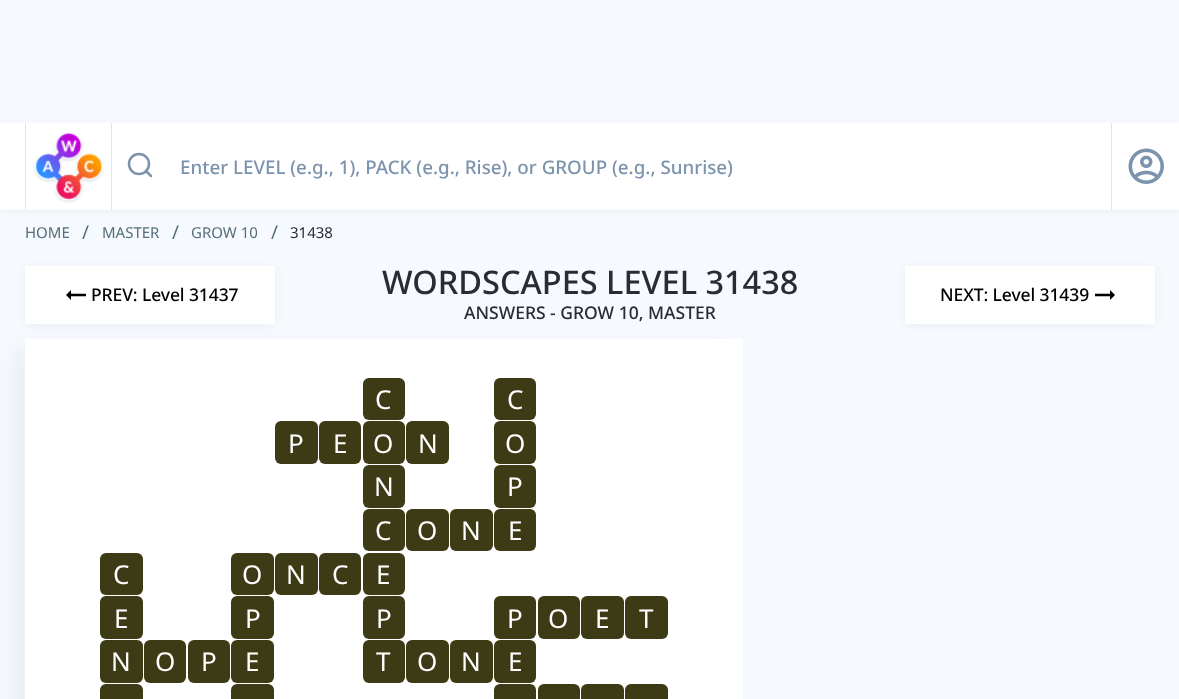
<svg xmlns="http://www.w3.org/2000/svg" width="1179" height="699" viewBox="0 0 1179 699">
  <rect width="100%" height="100%" fill="#f6f9fd"/>
  <path d="M0 124h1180v87H0z" fill="#7c93ad1a" filter="blur(3px)"/>
  <path d="M1 122h1178v1H1z" fill="#f6f9fd"/>
  <path d="M0 123h1179v87H0z" fill="#fff"/>
  <path d="M111 123h1v87H111z" fill="#dee5e9"/>
  <path d="M25 123h1v87H25z" fill="#dee5e9"/>
  <image x="33" y="132" width="71" height="71" href="img/1.png"/>
  <circle cx="139" cy="164" r="10" fill="none" stroke="#7c93ad" stroke-width="2.5"/>
  <path d="M151 176L146 171" fill="none" stroke="#7c93ad" stroke-width="2.5" stroke-linecap="round" stroke-linejoin="round"/>
  <path d="M1111 123h1v87H1111z" fill="#dee5e9"/>
  <image x="1128" y="148" width="36" height="36" href="img/2.png"/>
  <path d="M25 268h250v57H25z" fill="#7c93ad1a" filter="blur(4px)"/>
  <path d="M25 266h250v58H25z" fill="#fff"/>
  <image x="66" y="290" width="20" height="10" href="img/3.png"/>
  <path d="M905 268h250v57H905z" fill="#7c93ad1a" filter="blur(4px)"/>
  <path d="M905 266h250v58H905z" fill="#fff"/>
  <image x="1095" y="290" width="20" height="10" href="img/4.png"/>
  <path d="M15 349h718v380H15z" fill="#7c93ad1a" filter="blur(10px)"/>
  <path d="M25 339h718v360H25z" fill="#fff"/>
  <rect x="363" y="378" width="42" height="42" rx="6" fill="#3d3a16"/>
  <rect x="494" y="378" width="42" height="42" rx="6" fill="#3d3a16"/>
  <rect x="275" y="421" width="43" height="43" rx="6" fill="#3d3a16"/>
  <rect x="319" y="421" width="42" height="43" rx="6" fill="#3d3a16"/>
  <rect x="363" y="421" width="42" height="43" rx="6" fill="#3d3a16"/>
  <rect x="406" y="421" width="43" height="43" rx="6" fill="#3d3a16"/>
  <rect x="494" y="421" width="42" height="43" rx="6" fill="#3d3a16"/>
  <rect x="363" y="465" width="42" height="43" rx="6" fill="#3d3a16"/>
  <rect x="494" y="465" width="42" height="43" rx="6" fill="#3d3a16"/>
  <rect x="363" y="509" width="42" height="42" rx="6" fill="#3d3a16"/>
  <rect x="406" y="509" width="43" height="42" rx="6" fill="#3d3a16"/>
  <rect x="450" y="509" width="43" height="42" rx="6" fill="#3d3a16"/>
  <rect x="494" y="509" width="42" height="42" rx="6" fill="#3d3a16"/>
  <rect x="100" y="553" width="43" height="42" rx="6" fill="#3d3a16"/>
  <rect x="231" y="553" width="43" height="42" rx="6" fill="#3d3a16"/>
  <rect x="275" y="553" width="43" height="42" rx="6" fill="#3d3a16"/>
  <rect x="319" y="553" width="42" height="42" rx="6" fill="#3d3a16"/>
  <rect x="363" y="553" width="42" height="42" rx="6" fill="#3d3a16"/>
  <rect x="100" y="596" width="43" height="43" rx="6" fill="#3d3a16"/>
  <rect x="231" y="596" width="43" height="43" rx="6" fill="#3d3a16"/>
  <rect x="363" y="596" width="42" height="43" rx="6" fill="#3d3a16"/>
  <rect x="494" y="596" width="42" height="43" rx="6" fill="#3d3a16"/>
  <rect x="538" y="596" width="42" height="43" rx="6" fill="#3d3a16"/>
  <rect x="581" y="596" width="43" height="43" rx="6" fill="#3d3a16"/>
  <rect x="625" y="596" width="43" height="43" rx="6" fill="#3d3a16"/>
  <rect x="100" y="640" width="43" height="43" rx="6" fill="#3d3a16"/>
  <rect x="144" y="640" width="42" height="43" rx="6" fill="#3d3a16"/>
  <rect x="188" y="640" width="42" height="43" rx="6" fill="#3d3a16"/>
  <rect x="231" y="640" width="43" height="43" rx="6" fill="#3d3a16"/>
  <rect x="363" y="640" width="42" height="43" rx="6" fill="#3d3a16"/>
  <rect x="406" y="640" width="43" height="43" rx="6" fill="#3d3a16"/>
  <rect x="450" y="640" width="43" height="43" rx="6" fill="#3d3a16"/>
  <rect x="494" y="640" width="42" height="43" rx="6" fill="#3d3a16"/>
  <rect x="100" y="684" width="43" height="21" rx="6" fill="#3d3a16"/>
  <rect x="231" y="684" width="43" height="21" rx="6" fill="#3d3a16"/>
  <rect x="494" y="684" width="42" height="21" rx="6" fill="#3d3a16"/>
  <rect x="538" y="684" width="42" height="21" rx="6" fill="#3d3a16"/>
  <rect x="581" y="684" width="43" height="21" rx="6" fill="#3d3a16"/>
  <rect x="625" y="684" width="43" height="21" rx="6" fill="#3d3a16"/>
  <text x="180" y="174" font-family="Noto Sans" font-size="18.75" font-weight="500" fill="#7c93ad">Enter LEVEL (e.g., 1), PACK (e.g., Rise), or GROUP (e.g., Sunrise)</text>
  <text x="25" y="238" font-family="Noto Sans" font-size="15" fill="#546e7a">HOME</text>
  <text x="82" y="239" font-family="Noto Sans" font-size="18.75" fill="#546e7a">/</text>
  <text x="102" y="238" font-family="Noto Sans" font-size="15" fill="#546e7a">MASTER</text>
  <text x="172" y="239" font-family="Noto Sans" font-size="18.75" fill="#546e7a">/</text>
  <text x="191" y="238" font-family="Noto Sans" font-size="15" fill="#546e7a">GROW 10</text>
  <text x="271" y="239" font-family="Noto Sans" font-size="18.75" fill="#546e7a">/</text>
  <text x="290" y="238" font-family="Noto Sans" font-size="15" fill="#282d32">31438</text>
  <text x="91" y="301" font-family="Noto Sans" font-size="17.5" font-weight="500" letter-spacing="-0.1" fill="#000">PREV: Level 31437</text>
  <text x="382" y="294" font-family="Noto Sans" font-size="32.5" font-weight="500" fill="#282d32">WORDSCAPES LEVEL 31438</text>
  <text x="464" y="319" font-family="Noto Sans" font-size="17.5" font-weight="500" fill="#282d32">ANSWERS - GROW 10, MASTER</text>
  <text x="940" y="301" font-family="Noto Sans" font-size="17.5" font-weight="500" letter-spacing="-0.1" fill="#000">NEXT: Level 31439</text>
  <g font-family="Noto Sans" font-size="26" fill="#fff">
    <text x="375" y="409">C</text>
    <text x="507" y="409">C</text>
    <text x="288" y="453">P</text>
    <text x="333" y="453">E</text>
    <text x="373" y="453">O</text>
    <text x="418" y="453">N</text>
    <text x="505" y="453">O</text>
    <text x="374" y="496">N</text>
    <text x="507" y="496">P</text>
    <text x="375" y="540">C</text>
    <text x="417" y="540">O</text>
    <text x="461" y="540">N</text>
    <text x="508" y="540">E</text>
    <text x="113" y="584">C</text>
    <text x="242" y="584">O</text>
    <text x="286" y="584">N</text>
    <text x="332" y="584">C</text>
    <text x="376" y="584">E</text>
    <text x="114" y="628">E</text>
    <text x="245" y="628">P</text>
    <text x="376" y="628">P</text>
    <text x="507" y="628">P</text>
    <text x="548" y="628">O</text>
    <text x="595" y="628">E</text>
    <text x="639" y="628">T</text>
    <text x="111" y="671">N</text>
    <text x="155" y="671">O</text>
    <text x="201" y="671">P</text>
    <text x="245" y="671">E</text>
    <text x="376" y="671">T</text>
    <text x="417" y="671">O</text>
    <text x="461" y="671">N</text>
    <text x="508" y="671">E</text>
  </g>
</svg>
